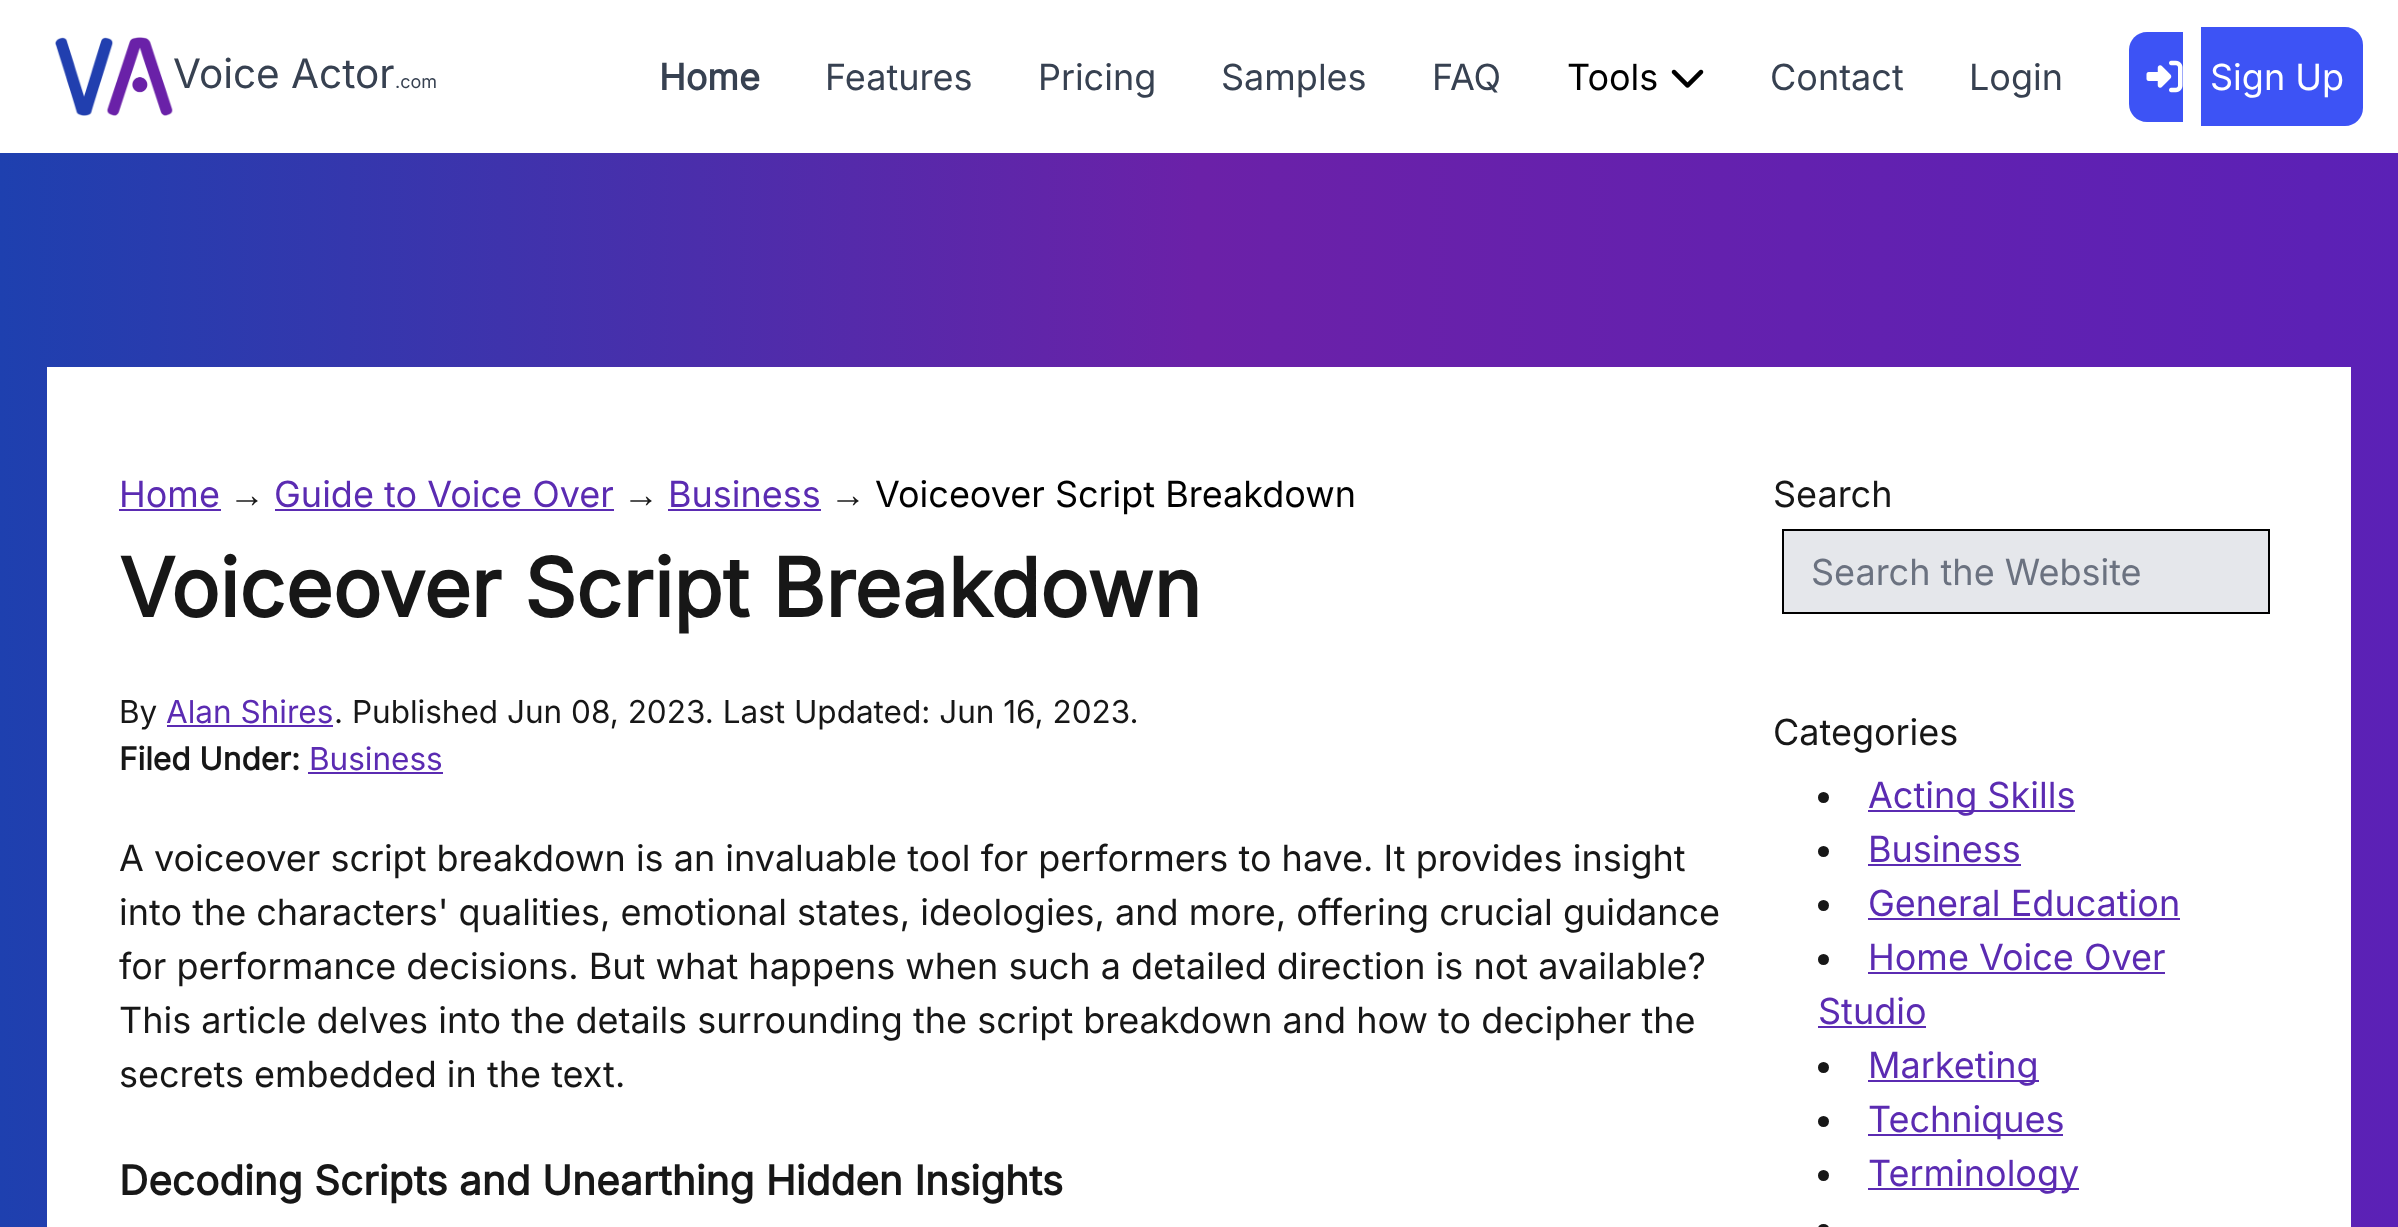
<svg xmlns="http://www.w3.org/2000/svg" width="2398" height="1227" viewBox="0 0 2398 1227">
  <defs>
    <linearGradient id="g1" gradientUnits="userSpaceOnUse" x1="0" y1="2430" x2="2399" y2="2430"><stop offset="0" stop-color="#1e40af"/><stop offset="0.5" stop-color="#6b21a8"/><stop offset="1" stop-color="#5b21b6"/></linearGradient>
  </defs>
  <rect width="100%" height="100%" fill="#fff"/>
  <path d="M0 153h2398v1074H0z" fill="url(#g1)"/>
  <image x="55" y="37" width="118" height="79" href="img/1.png"/>
  <image x="1671" y="69" width="33" height="19" href="img/2.png"/>
  <path d="M2147 32H2183V122H2147C2137 122 2129 114 2129 104V50C2129 40 2137 32 2147 32Z" fill="#3d53f5"/>
  <path d="M2201 27H2345C2355 27 2363 35 2363 45V108C2363 118 2355 126 2345 126H2201Z" fill="#3d53f5"/>
  <image x="2146" y="60" width="37" height="33" href="img/3.png"/>
  <path d="M47 367h2304v860H47z" fill="#fff"/>
  <path d="M119 509h102v2H119z" fill="#5b2bb2"/>
  <path d="M275 509h339v2H275z" fill="#5b2bb2"/>
  <path d="M668 509h153v2H668z" fill="#5b2bb2"/>
  <path d="M167 725h166v2H167z" fill="#5b2bb2"/>
  <path d="M308 772h135v2H308z" fill="#5b2bb2"/>
  <path d="M1783 530h486v83H1783z" fill="#e5e7eb" stroke="#000" stroke-width="2"/>
  <circle cx="1823.5" cy="797.5" r="5.5" fill="#171717"/>
  <path d="M1868 810h207v2H1868z" fill="#5b2bb2"/>
  <circle cx="1823.5" cy="851.5" r="5.5" fill="#171717"/>
  <path d="M1868 864h153v2H1868z" fill="#5b2bb2"/>
  <circle cx="1823.5" cy="905.5" r="5.5" fill="#171717"/>
  <path d="M1868 918h312v2H1868z" fill="#5b2bb2"/>
  <circle cx="1823.5" cy="959.5" r="5.5" fill="#171717"/>
  <path d="M1868 972h297v2H1868z" fill="#5b2bb2"/>
  <path d="M1818 1026h108v2H1818z" fill="#5b2bb2"/>
  <circle cx="1823.5" cy="1067.5" r="5.5" fill="#171717"/>
  <path d="M1868 1080h171v2H1868z" fill="#5b2bb2"/>
  <circle cx="1823.5" cy="1121.5" r="5.5" fill="#171717"/>
  <path d="M1868 1134h195v2H1868z" fill="#5b2bb2"/>
  <circle cx="1823.5" cy="1175.5" r="5.5" fill="#171717"/>
  <path d="M1868 1188h211v2H1868z" fill="#5b2bb2"/>
  <rect x="1818" y="1224" width="11" height="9" rx="5.5" fill="#171717"/>
  <text x="173" y="88" font-family="Inter" font-size="40.5" fill="#374151">Voice Actor</text>
  <text x="395" y="88" font-family="Inter" font-size="18" fill="#374151">.com</text>
  <text x="659" y="90" font-family="Inter" font-size="36" font-weight="bold" fill="#374151">Home</text>
  <g font-family="Inter" font-size="36" fill="#374151">
    <text x="825" y="90">Features</text>
    <text x="1038" y="90">Pricing</text>
    <text x="1221" y="90">Samples</text>
    <text x="1432" y="90">FAQ</text>
  </g>
  <text x="1567" y="90" font-family="Inter" font-size="36" fill="#000">Tools</text>
  <g font-family="Inter" font-size="36" fill="#374151">
    <text x="1770" y="90">Contact</text>
    <text x="1969" y="90">Login</text>
  </g>
  <text x="2210" y="90" font-family="Inter" font-size="36" fill="#fff">Sign Up</text>
  <text x="119" y="507" font-family="Inter" font-size="36" fill="#5b2bb2">Home</text>
  <text x="229" y="507" font-family="Liberation Sans" font-size="36" fill="#171717">→</text>
  <text x="274" y="507" font-family="Inter" font-size="36" fill="#5b2bb2">Guide to Voice Over</text>
  <text x="623" y="507" font-family="Liberation Sans" font-size="36" fill="#171717">→</text>
  <text x="668" y="507" font-family="Inter" font-size="36" fill="#5b2bb2">Business</text>
  <text x="830" y="507" font-family="Liberation Sans" font-size="36" fill="#171717">→</text>
  <text x="875" y="507" font-family="Inter" font-size="36" fill="#000">Voiceover Script Breakdown</text>
  <text x="119" y="617" font-family="Inter" font-size="81" font-weight="bold" fill="#171717">Voiceover Script Breakdown</text>
  <text x="119" y="723" font-family="Inter" font-size="31.5" fill="#171717">By</text>
  <text x="166" y="723" font-family="Inter" font-size="31.5" fill="#5b2bb2">Alan Shires</text>
  <text x="334" y="723" font-family="Inter" font-size="31.5" fill="#171717">. Published Jun 08, 2023. Last Updated: Jun 16, 2023.</text>
  <text x="119" y="770" font-family="Inter" font-size="31.5" font-weight="bold" fill="#171717">Filed Under:</text>
  <text x="309" y="770" font-family="Inter" font-size="31.5" fill="#5b2bb2">Business</text>
  <g font-family="Inter" font-size="36" fill="#171717">
    <text x="119" y="871">A voiceover script breakdown is an invaluable tool for performers to have. It provides insight</text>
    <text x="119" y="925">into the characters' qualities, emotional states, ideologies, and more, offering crucial guidance</text>
    <text x="119" y="979">for performance decisions. But what happens when such a detailed direction is not available?</text>
    <text x="119" y="1033">This article delves into the details surrounding the script breakdown and how to decipher the</text>
    <text x="119" y="1087">secrets embedded in the text.</text>
  </g>
  <text x="119" y="1195" font-family="Inter" font-size="40.5" font-weight="bold" fill="#171717">Decoding Scripts and Unearthing Hidden Insights</text>
  <text x="1773" y="507" font-family="Inter" font-size="36" fill="#171717">Search</text>
  <text x="1811" y="585" font-family="Inter" font-size="36" fill="#6b7280">Search the Website</text>
  <text x="1773" y="745" font-family="Inter" font-size="36" fill="#171717">Categories</text>
  <g font-family="Inter" font-size="36" fill="#5b2bb2">
    <text x="1868" y="808">Acting Skills</text>
    <text x="1868" y="862">Business</text>
    <text x="1868" y="916">General Education</text>
    <text x="1868" y="970">Home Voice Over</text>
    <text x="1818" y="1024">Studio</text>
    <text x="1868" y="1078">Marketing</text>
    <text x="1868" y="1132">Techniques</text>
    <text x="1868" y="1186">Terminology</text>
  </g>
</svg>
